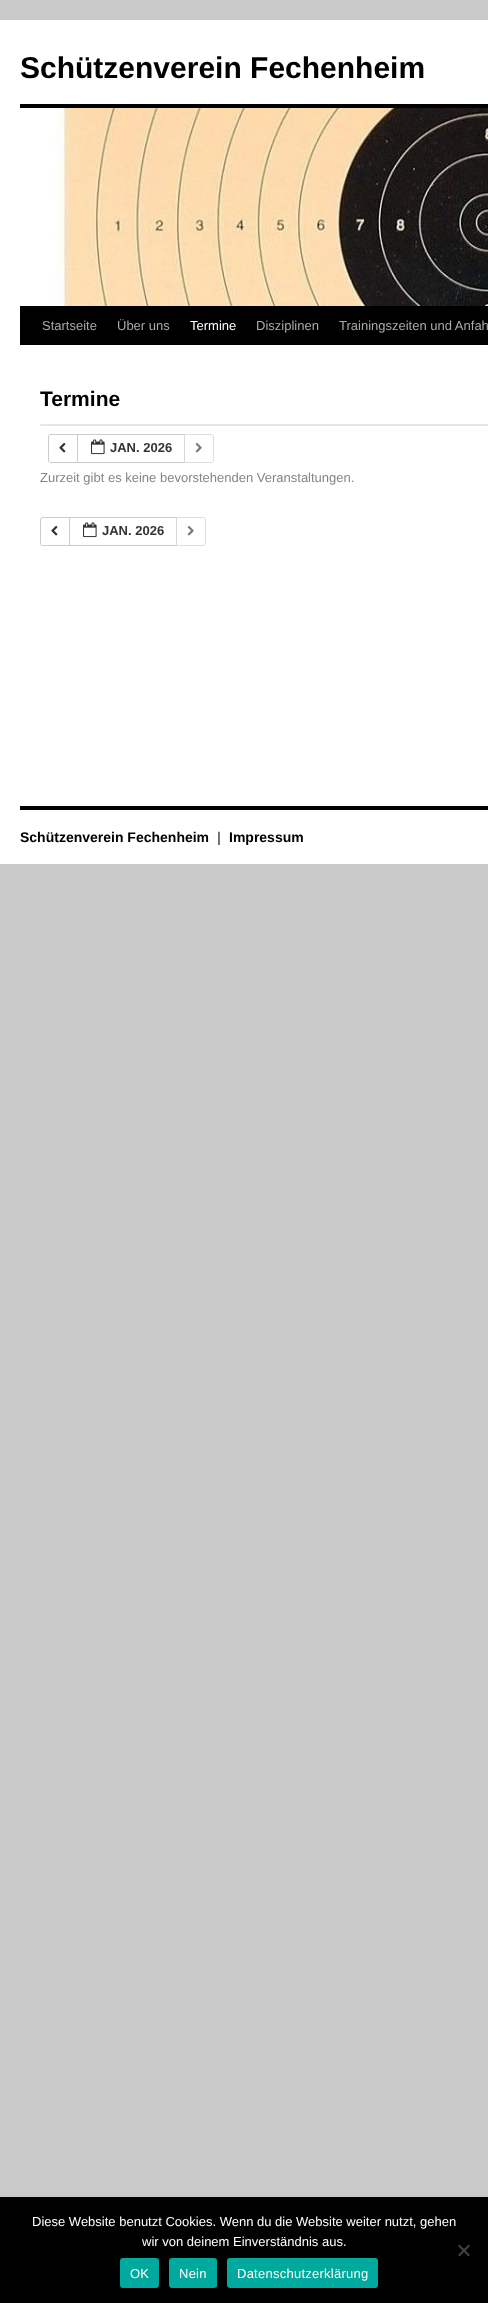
<svg xmlns="http://www.w3.org/2000/svg" width="488" height="2303" viewBox="0 0 488 2303">
  <rect width="100%" height="100%" fill="#c9c9c9"/>
  <path d="M0 20h488v844H0z" fill="#fff"/>
  <path d="M20 104h468v4H20z" fill="#000"/>
  <path d="M20 306h468v39H20z" fill="#000"/>
  <image x="54" y="108" width="434" height="198" href="img/1.png"/>
  <rect x="40" y="424" width="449" height="2" rx="1" fill="#e6e6e6"/>
  <path d="M51 434.5H77.5V462.5H51C49.5 462.5 48.5 461.5 48.5 460V437C48.5 435.5 49.5 434.5 51 434.5Z" fill="none" stroke="#ccc"/>
  <image x="59" y="443" width="7" height="10" href="img/2.png"/>
  <path d="M77.5 434.5h107v28H77.5z" fill="none" stroke="#ccc"/>
  <image x="91" y="439" width="14" height="16" href="img/3.png"/>
  <path d="M184 434H211C212.5 434 214 435.5 214 437V460C214 461.5 212.5 463 211 463H184Z" fill="#ffffffa6"/>
  <path d="M184.5 434.5H211C212.5 434.5 213.5 435.5 213.5 437V460C213.5 461.5 212.5 462.5 211 462.5H184.5Z" fill="none" stroke="#cccccca6"/>
  <image x="195" y="443" width="7" height="10" href="img/4.png"/>
  <path d="M43 517.5H69.5V545.5H43C41.5 545.5 40.5 544.5 40.5 543V520C40.5 518.5 41.5 517.5 43 517.5Z" fill="none" stroke="#ccc"/>
  <image x="51" y="526" width="7" height="10" href="img/2.png"/>
  <path d="M69.5 517.5h107v28H69.5z" fill="none" stroke="#ccc"/>
  <image x="83" y="522" width="14" height="16" href="img/3.png"/>
  <path d="M176 517H203C204.5 517 206 518.5 206 520V543C206 544.5 204.5 546 203 546H176Z" fill="#ffffffa6"/>
  <path d="M176.5 517.5H203C204.5 517.5 205.5 518.5 205.5 520V543C205.5 544.5 204.5 545.5 203 545.5H176.5Z" fill="none" stroke="#cccccca6"/>
  <image x="187" y="526" width="7" height="10" href="img/4.png"/>
  <path d="M20 806h468v4H20z" fill="#000"/>
  <path d="M0 2197h488v106H0z" fill="#000"/>
  <path d="M468.5 2244.5L470 2246L459.5 2256.5L458 2255Z" fill="#404040"/>
  <path d="M458 2246L459.5 2244.5L470 2255L468.5 2256.5Z" fill="#404040"/>
  <rect x="120" y="2258" width="39" height="30" rx="3" fill="#00a99d"/>
  <rect x="169" y="2258" width="48" height="30" rx="3" fill="#00a99d"/>
  <rect x="227" y="2258" width="151" height="30" rx="3" fill="#00a99d"/>
  <text x="20" y="78" font-family="Liberation Sans" font-size="30" font-weight="bold" fill="#000">Schützenverein Fechenheim</text>
  <g font-family="Liberation Sans" font-size="13" fill="#aaa">
    <text x="42" y="330">Startseite</text>
    <text x="117" y="330">Über uns</text>
  </g>
  <text x="190" y="330" font-family="Liberation Sans" font-size="13" fill="#fff">Termine</text>
  <g font-family="Liberation Sans" font-size="13" fill="#aaa">
    <text x="256" y="330">Disziplinen</text>
    <text x="339" y="330">Trainingszeiten und Anfah</text>
  </g>
  <text x="40" y="406" font-family="Liberation Sans" font-size="21" font-weight="bold" fill="#000">Termine</text>
  <text x="110" y="452" font-family="Liberation Sans" font-size="13" font-weight="bold" fill="#333">JAN. 2026</text>
  <text x="40" y="482" font-family="Liberation Sans" font-size="13" fill="#858585">Zurzeit gibt es keine bevorstehenden Veranstaltungen.</text>
  <text x="102" y="535" font-family="Liberation Sans" font-size="13" font-weight="bold" fill="#333">JAN. 2026</text>
  <text x="20" y="842" font-family="Liberation Sans" font-size="14" font-weight="bold" fill="#000">Schützenverein Fechenheim</text>
  <text x="217" y="842" font-family="Liberation Sans" font-size="14" font-weight="bold" fill="#666">|</text>
  <text x="229" y="842" font-family="Liberation Sans" font-size="14" font-weight="bold" fill="#000">Impressum</text>
  <g font-family="Liberation Sans" font-size="13" fill="#fff">
    <text x="32" y="2226">Diese Website benutzt Cookies. Wenn du die Website weiter nutzt, gehen</text>
    <text x="142" y="2246">wir von deinem Einverständnis aus.</text>
  </g>
  <g font-family="Liberation Sans" font-size="13" letter-spacing="0.25" fill="#fff">
    <text x="130" y="2278">OK</text>
    <text x="179" y="2278">Nein</text>
    <text x="237" y="2278">Datenschutzerklärung</text>
  </g>
</svg>
